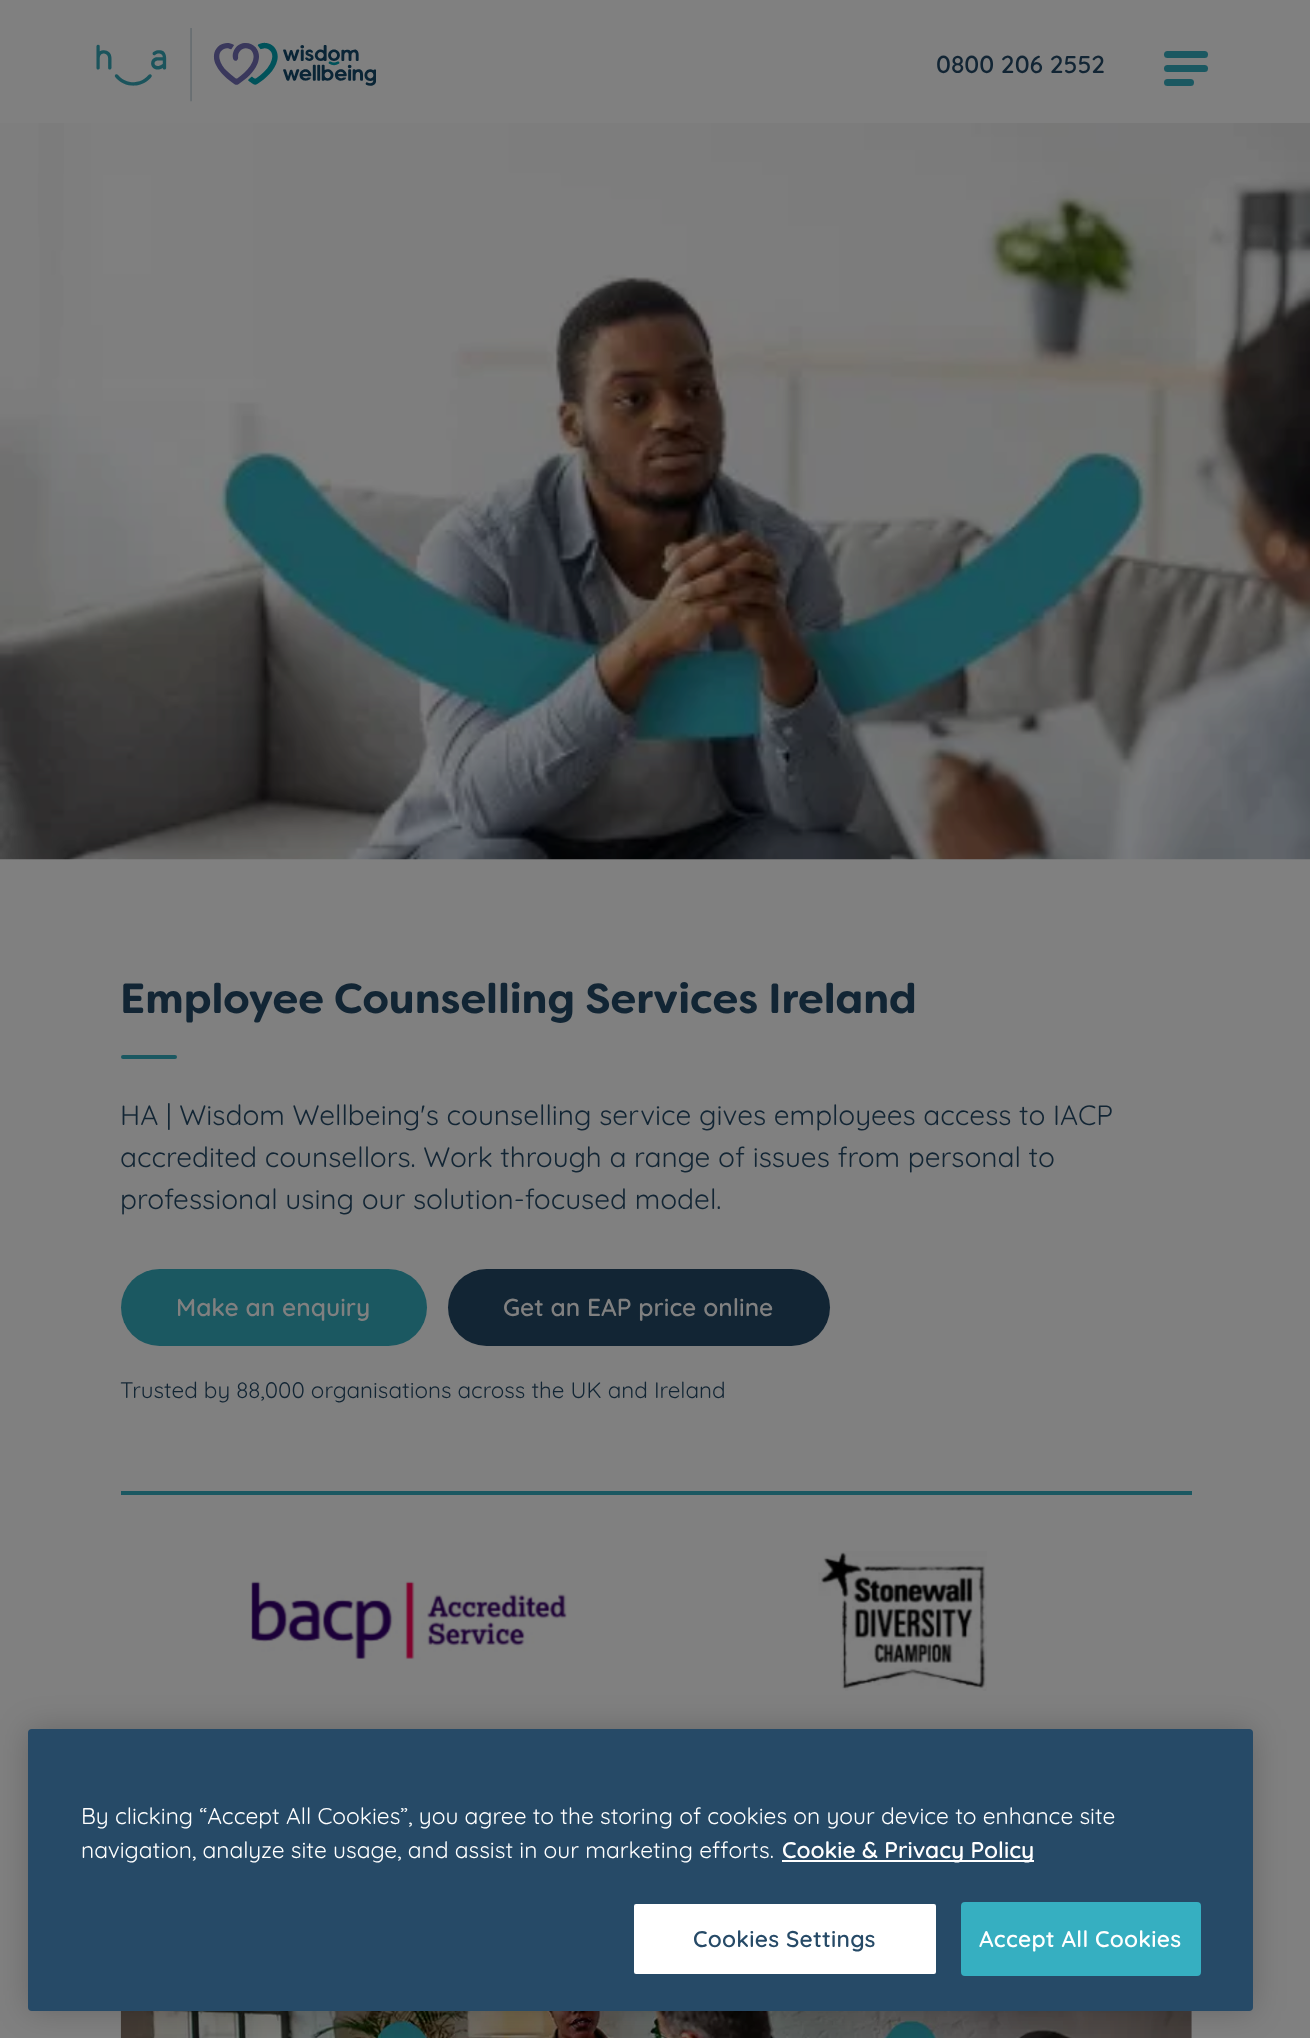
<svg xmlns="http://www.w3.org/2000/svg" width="1310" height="2038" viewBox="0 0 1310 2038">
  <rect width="100%" height="100%" fill="#808080"/>
  <image x="96" y="28" width="280" height="74" href="img/1.png"/>
  <rect x="1164" y="51" width="44" height="7" rx="3.5" fill="#1b5861"/>
  <rect x="1164" y="65" width="44" height="7" rx="3.5" fill="#1b5861"/>
  <rect x="1164" y="79" width="30" height="7" rx="3.5" fill="#1b5861"/>
  <image x="0" y="123" width="1310" height="737" href="img/2.png"/>
  <rect x="121" y="1055" width="56" height="4" rx="2" fill="#1b5861"/>
  <rect x="121" y="1269" width="306" height="77" rx="38.5" fill="#1b5861"/>
  <rect x="448" y="1269" width="382" height="77" rx="38.5" fill="#122534"/>
  <path d="M121 1491h1071v4H121z" fill="#1b5861"/>
  <image x="251" y="1581" width="316" height="79" href="img/3.png"/>
  <image x="818" y="1551" width="169" height="140" href="img/4.png"/>
  <image x="120" y="2011" width="1072" height="27" href="img/5.png"/>
  <rect x="28" y="1729" width="1225" height="282" rx="4" fill="#00000033" filter="blur(16px)"/>
  <rect x="28" y="1729" width="1225" height="282" rx="4" fill="#264a67"/>
  <path d="M782 1860h252v2H782z" fill="#fff"/>
  <rect x="633" y="1903" width="304" height="72" rx="3" fill="#fff" stroke="#264a67" stroke-width="2"/>
  <rect x="962" y="1903" width="238" height="72" rx="3" fill="#36afc1" stroke="#36afc1" stroke-width="2"/>
  <text x="936" y="73" font-family="Quicksand" font-size="24.5" font-weight="600" fill="#122534">0800 206 2552</text>
  <text x="120" y="1013" font-family="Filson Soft" font-size="42" font-weight="bold" fill="#122534">Employee Counselling Services Ireland</text>
  <g font-family="Quicksand" font-size="28" fill="#122534">
    <text x="120" y="1125">HA | Wisdom Wellbeing's counselling service gives employees access to IACP</text>
    <text x="120" y="1167">accredited counsellors. Work through a range of issues from personal to</text>
    <text x="120" y="1209">professional using our solution-focused model.</text>
  </g>
  <g font-family="Quicksand" font-size="24.5" font-weight="600" fill="#808080">
    <text x="176" y="1316">Make an enquiry</text>
    <text x="503" y="1316">Get an EAP price online</text>
  </g>
  <text x="120" y="1398" font-family="Quicksand" font-size="22.4" fill="#122534">Trusted by 88,000 organisations across the UK and Ireland</text>
  <g font-family="Quicksand" font-size="22.75" fill="#fff">
    <text x="81" y="1824">By clicking “Accept All Cookies”, you agree to the storing of cookies on your device to enhance site</text>
    <text x="81" y="1858">navigation, analyze site usage, and assist in our marketing efforts.</text>
  </g>
  <text x="782" y="1858" font-family="Quicksand" font-size="22.75" font-weight="600" fill="#fff">Cookie &amp; Privacy Policy</text>
  <text x="693" y="1947" font-family="Quicksand" font-size="22.75" font-weight="600" letter-spacing="0.25" fill="#264a67">Cookies Settings</text>
  <text x="979" y="1947" font-family="Quicksand" font-size="22.75" font-weight="600" letter-spacing="0.25" fill="#fff">Accept All Cookies</text>
</svg>
